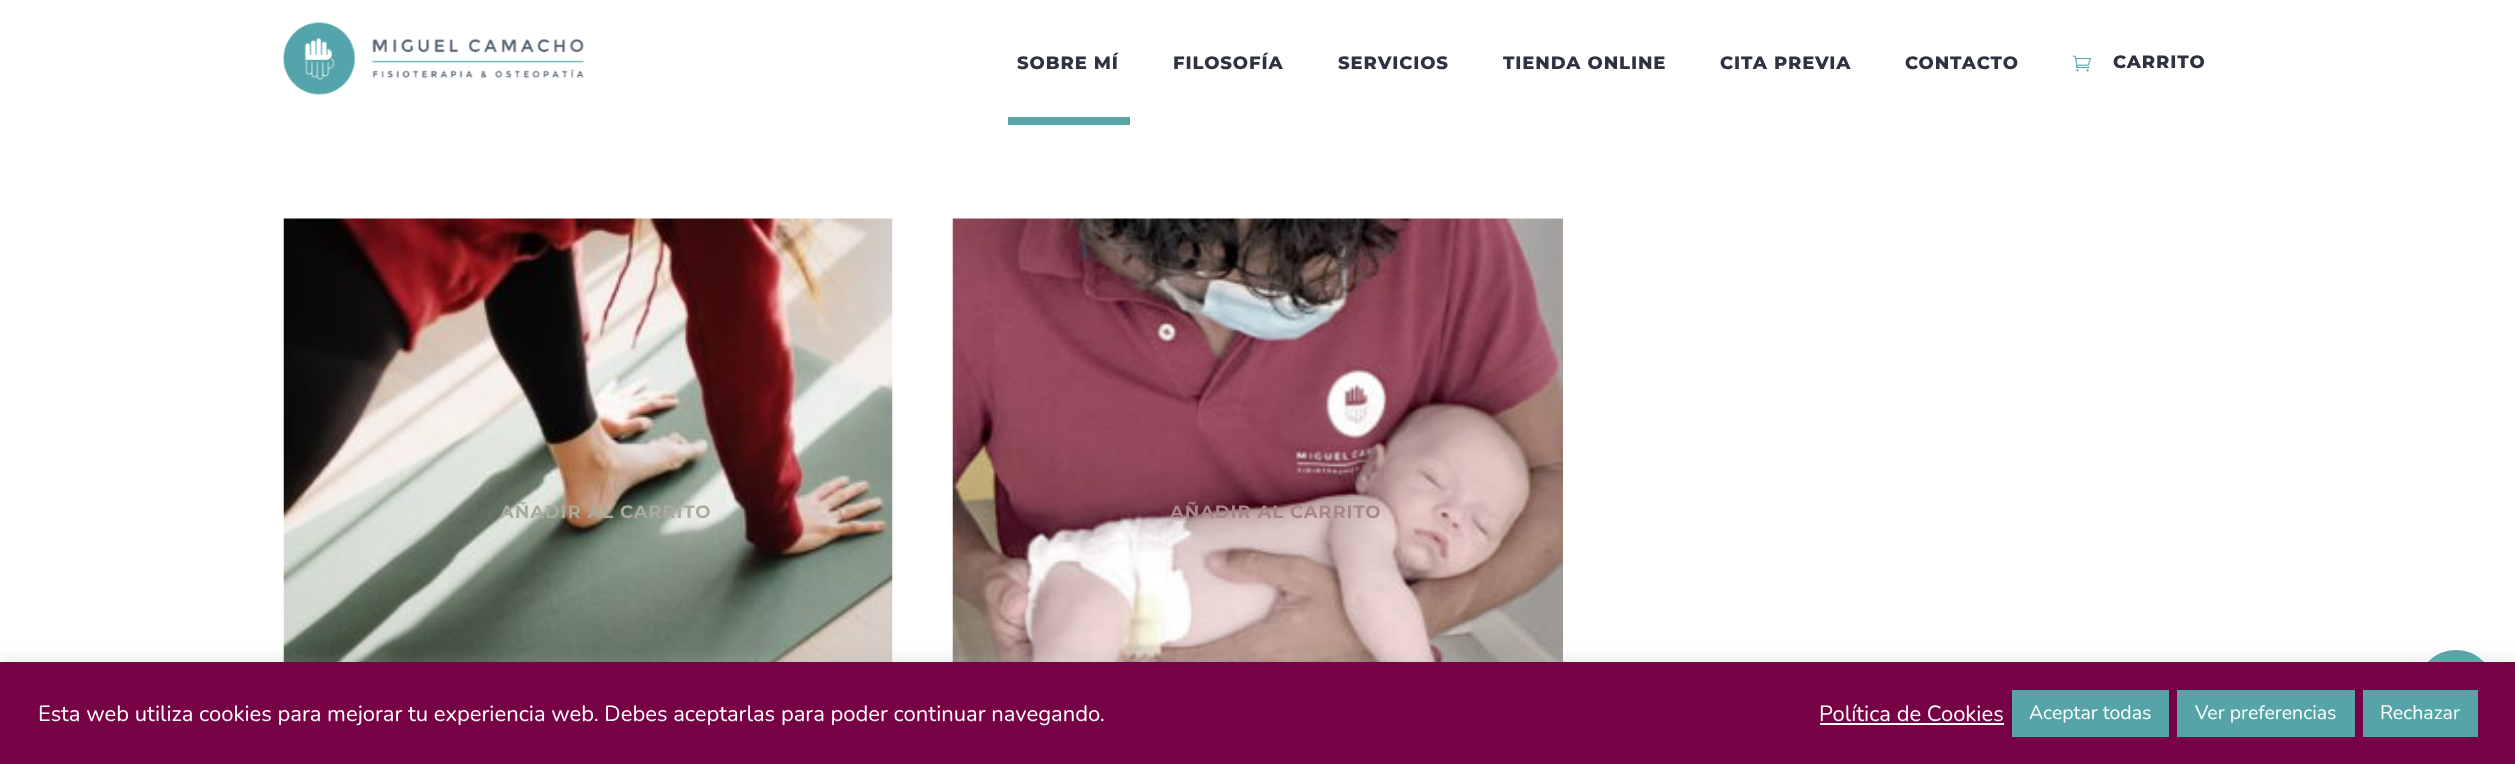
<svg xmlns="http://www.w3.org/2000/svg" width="2515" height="764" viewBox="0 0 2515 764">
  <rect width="100%" height="100%" fill="#fff"/>
  <image x="283" y="22" width="301" height="73" href="img/1.png"/>
  <image x="2073" y="55" width="18" height="17" href="img/2.png"/>
  <path d="M1008 117h122v8H1008z" fill="#56a4a7"/>
  <image x="283" y="218" width="610" height="444" href="img/3.png"/>
  <image x="952" y="218" width="611" height="444" href="img/4.png"/>
  <circle cx="2456" cy="689" r="38" fill="#56a4a7" stroke="#56a4a7" stroke-width="2"/>
  <circle cx="2454.5" cy="688.5" r="37.5" fill="#56a4a7"/>
  <path d="M0 660h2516v104H0z" fill="#acabab4d" filter="blur(7.5px)"/>
  <path d="M0 662h2515v102H0z" fill="#760145"/>
  <path d="M1820 723h184v2H1820z" fill="#fff"/>
  <path d="M2012 690h157v47H2012z" fill="#56a4a7"/>
  <path d="M2177 690h178v47H2177z" fill="#56a4a7"/>
  <path d="M2363 690h115v47H2363z" fill="#56a4a7"/>
  <g font-family="Montserrat" font-size="18" font-weight="800" letter-spacing="0.9" fill="#2f3241">
    <text x="1017" y="69">SOBRE MÍ</text>
    <text x="1173" y="69">FILOSOFÍA</text>
    <text x="1338" y="69">SERVICIOS</text>
    <text x="1503" y="69">TIENDA ONLINE</text>
    <text x="1720" y="69">CITA PREVIA</text>
    <text x="1905" y="69">CONTACTO</text>
    <text x="2113" y="68">CARRITO</text>
  </g>
  <text x="500" y="518" font-family="Montserrat" font-size="18" font-weight="bold" letter-spacing="0.9" fill="#abab9c">AÑADIR AL CARRITO</text>
  <text x="1170" y="518" font-family="Montserrat" font-size="18" font-weight="bold" letter-spacing="0.9" fill="#a8868a">AÑADIR AL CARRITO</text>
  <g font-family="Nunito" font-size="22" fill="#fff">
    <text x="38" y="721">Esta web utiliza cookies para mejorar tu experiencia web. Debes aceptarlas para poder continuar navegando.</text>
    <text x="1819" y="721">Política de Cookies</text>
  </g>
  <g font-family="Nunito" font-size="19.5" fill="#fff">
    <text x="2029" y="719">Aceptar todas</text>
    <text x="2195" y="719">Ver preferencias</text>
    <text x="2380" y="719">Rechazar</text>
  </g>
</svg>
